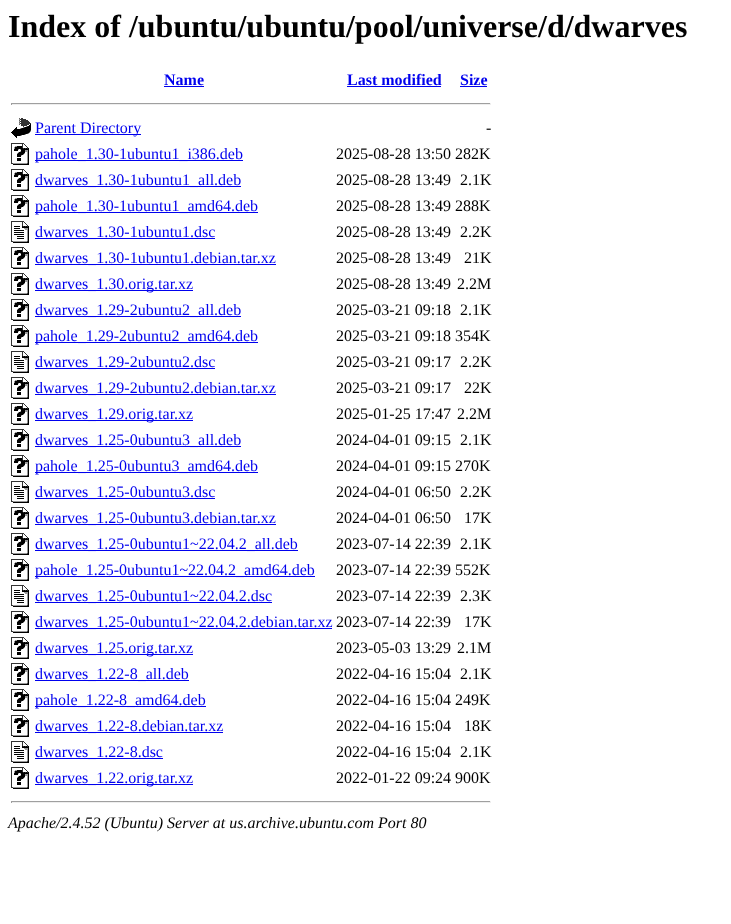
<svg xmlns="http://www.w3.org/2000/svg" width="731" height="924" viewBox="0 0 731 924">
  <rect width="100%" height="100%" fill="#fff"/>
  <path d="M164 86h40v1H164z" fill="#00e"/>
  <path d="M347 86h94v1H347z" fill="#00e"/>
  <path d="M460 86h27v1H460z" fill="#00e"/>
  <path d="M11 103h480v1H11z" fill="#9f9f9f"/>
  <path d="M490 103h1v2H490z" fill="#eee"/>
  <path d="M11 104h480v1H11z" fill="#eee"/>
  <path d="M11 103h1v2H11z" fill="#9f9f9f"/>
  <image x="11" y="118" width="20" height="20" href="img/1.png"/>
  <path d="M35 134h106v1H35z" fill="#00e"/>
  <image x="11" y="143" width="18" height="22" href="img/2.png"/>
  <path d="M35 160h208v1H35z" fill="#00e"/>
  <image x="11" y="169" width="18" height="22" href="img/2.png"/>
  <path d="M35 186h206v1H35z" fill="#00e"/>
  <image x="11" y="195" width="18" height="22" href="img/2.png"/>
  <path d="M35 212h223v1H35z" fill="#00e"/>
  <image x="11" y="221" width="18" height="22" href="img/3.png"/>
  <path d="M35 238h180v1H35z" fill="#00e"/>
  <image x="11" y="247" width="18" height="22" href="img/2.png"/>
  <path d="M35 264h241v1H35z" fill="#00e"/>
  <image x="11" y="273" width="18" height="22" href="img/2.png"/>
  <path d="M35 290h158v1H35z" fill="#00e"/>
  <image x="11" y="299" width="18" height="22" href="img/2.png"/>
  <path d="M35 316h206v1H35z" fill="#00e"/>
  <image x="11" y="325" width="18" height="22" href="img/2.png"/>
  <path d="M35 342h223v1H35z" fill="#00e"/>
  <image x="11" y="351" width="18" height="22" href="img/3.png"/>
  <path d="M35 368h180v1H35z" fill="#00e"/>
  <image x="11" y="377" width="18" height="22" href="img/2.png"/>
  <path d="M35 394h241v1H35z" fill="#00e"/>
  <image x="11" y="403" width="18" height="22" href="img/2.png"/>
  <path d="M35 420h158v1H35z" fill="#00e"/>
  <image x="11" y="429" width="18" height="22" href="img/2.png"/>
  <path d="M35 446h206v1H35z" fill="#00e"/>
  <image x="11" y="455" width="18" height="22" href="img/2.png"/>
  <path d="M35 472h223v1H35z" fill="#00e"/>
  <image x="11" y="481" width="18" height="22" href="img/3.png"/>
  <path d="M35 498h180v1H35z" fill="#00e"/>
  <image x="11" y="507" width="18" height="22" href="img/2.png"/>
  <path d="M35 524h241v1H35z" fill="#00e"/>
  <image x="11" y="533" width="18" height="22" href="img/2.png"/>
  <path d="M35 550h263v1H35z" fill="#00e"/>
  <image x="11" y="559" width="18" height="22" href="img/2.png"/>
  <path d="M35 576h280v1H35z" fill="#00e"/>
  <image x="11" y="585" width="18" height="22" href="img/3.png"/>
  <path d="M35 602h237v1H35z" fill="#00e"/>
  <image x="11" y="611" width="18" height="22" href="img/2.png"/>
  <path d="M35 628h297v1H35z" fill="#00e"/>
  <image x="11" y="637" width="18" height="22" href="img/2.png"/>
  <path d="M35 654h158v1H35z" fill="#00e"/>
  <image x="11" y="663" width="18" height="22" href="img/2.png"/>
  <path d="M35 680h154v1H35z" fill="#00e"/>
  <image x="11" y="689" width="18" height="22" href="img/2.png"/>
  <path d="M35 706h171v1H35z" fill="#00e"/>
  <image x="11" y="715" width="18" height="22" href="img/2.png"/>
  <path d="M35 732h188v1H35z" fill="#00e"/>
  <image x="11" y="741" width="18" height="22" href="img/3.png"/>
  <path d="M35 758h128v1H35z" fill="#00e"/>
  <image x="11" y="767" width="18" height="22" href="img/2.png"/>
  <path d="M35 784h158v1H35z" fill="#00e"/>
  <path d="M11 801h480v1H11z" fill="#9f9f9f"/>
  <path d="M490 801h1v2H490z" fill="#eee"/>
  <path d="M11 802h480v1H11z" fill="#eee"/>
  <path d="M11 801h1v2H11z" fill="#9f9f9f"/>
  <text x="8" y="37" font-family="Liberation Serif" font-size="32" font-weight="bold" fill="#000">Index of /ubuntu/ubuntu/pool/universe/d/dwarves</text>
  <g font-family="Liberation Serif" font-size="16" font-weight="bold" fill="#00e">
    <text x="164" y="85">Name</text>
    <text x="347" y="85">Last modified</text>
    <text x="460" y="85">Size</text>
  </g>
  <text x="35" y="133" font-family="Liberation Serif" font-size="16" fill="#00e">Parent Directory</text>
  <text x="486" y="133" font-family="Liberation Serif" font-size="16" fill="#000">-</text>
  <text x="35" y="159" font-family="Liberation Serif" font-size="16" fill="#00e">pahole_1.30-1ubuntu1_i386.deb</text>
  <text x="336" y="159" font-family="Liberation Serif" font-size="16" fill="#000">2025-08-28 13:50 282K</text>
  <text x="35" y="185" font-family="Liberation Serif" font-size="16" fill="#00e">dwarves_1.30-1ubuntu1_all.deb</text>
  <g font-family="Liberation Serif" font-size="16" fill="#000">
    <text x="336" y="185">2025-08-28 13:49</text>
    <text x="460" y="185">2.1K</text>
  </g>
  <text x="35" y="211" font-family="Liberation Serif" font-size="16" fill="#00e">pahole_1.30-1ubuntu1_amd64.deb</text>
  <text x="336" y="211" font-family="Liberation Serif" font-size="16" fill="#000">2025-08-28 13:49 288K</text>
  <text x="35" y="237" font-family="Liberation Serif" font-size="16" fill="#00e">dwarves_1.30-1ubuntu1.dsc</text>
  <g font-family="Liberation Serif" font-size="16" fill="#000">
    <text x="336" y="237">2025-08-28 13:49</text>
    <text x="460" y="237">2.2K</text>
  </g>
  <text x="35" y="263" font-family="Liberation Serif" font-size="16" fill="#00e">dwarves_1.30-1ubuntu1.debian.tar.xz</text>
  <g font-family="Liberation Serif" font-size="16" fill="#000">
    <text x="336" y="263">2025-08-28 13:49</text>
    <text x="464" y="263">21K</text>
  </g>
  <text x="35" y="289" font-family="Liberation Serif" font-size="16" fill="#00e">dwarves_1.30.orig.tar.xz</text>
  <g font-family="Liberation Serif" font-size="16" fill="#000">
    <text x="336" y="289">2025-08-28 13:49</text>
    <text x="457" y="289">2.2M</text>
  </g>
  <text x="35" y="315" font-family="Liberation Serif" font-size="16" fill="#00e">dwarves_1.29-2ubuntu2_all.deb</text>
  <g font-family="Liberation Serif" font-size="16" fill="#000">
    <text x="336" y="315">2025-03-21 09:18</text>
    <text x="460" y="315">2.1K</text>
  </g>
  <text x="35" y="341" font-family="Liberation Serif" font-size="16" fill="#00e">pahole_1.29-2ubuntu2_amd64.deb</text>
  <text x="336" y="341" font-family="Liberation Serif" font-size="16" fill="#000">2025-03-21 09:18 354K</text>
  <text x="35" y="367" font-family="Liberation Serif" font-size="16" fill="#00e">dwarves_1.29-2ubuntu2.dsc</text>
  <g font-family="Liberation Serif" font-size="16" fill="#000">
    <text x="336" y="367">2025-03-21 09:17</text>
    <text x="460" y="367">2.2K</text>
  </g>
  <text x="35" y="393" font-family="Liberation Serif" font-size="16" fill="#00e">dwarves_1.29-2ubuntu2.debian.tar.xz</text>
  <g font-family="Liberation Serif" font-size="16" fill="#000">
    <text x="336" y="393">2025-03-21 09:17</text>
    <text x="464" y="393">22K</text>
  </g>
  <text x="35" y="419" font-family="Liberation Serif" font-size="16" fill="#00e">dwarves_1.29.orig.tar.xz</text>
  <g font-family="Liberation Serif" font-size="16" fill="#000">
    <text x="336" y="419">2025-01-25 17:47</text>
    <text x="457" y="419">2.2M</text>
  </g>
  <text x="35" y="445" font-family="Liberation Serif" font-size="16" fill="#00e">dwarves_1.25-0ubuntu3_all.deb</text>
  <g font-family="Liberation Serif" font-size="16" fill="#000">
    <text x="336" y="445">2024-04-01 09:15</text>
    <text x="460" y="445">2.1K</text>
  </g>
  <text x="35" y="471" font-family="Liberation Serif" font-size="16" fill="#00e">pahole_1.25-0ubuntu3_amd64.deb</text>
  <text x="336" y="471" font-family="Liberation Serif" font-size="16" fill="#000">2024-04-01 09:15 270K</text>
  <text x="35" y="497" font-family="Liberation Serif" font-size="16" fill="#00e">dwarves_1.25-0ubuntu3.dsc</text>
  <g font-family="Liberation Serif" font-size="16" fill="#000">
    <text x="336" y="497">2024-04-01 06:50</text>
    <text x="460" y="497">2.2K</text>
  </g>
  <text x="35" y="523" font-family="Liberation Serif" font-size="16" fill="#00e">dwarves_1.25-0ubuntu3.debian.tar.xz</text>
  <g font-family="Liberation Serif" font-size="16" fill="#000">
    <text x="336" y="523">2024-04-01 06:50</text>
    <text x="464" y="523">17K</text>
  </g>
  <text x="35" y="549" font-family="Liberation Serif" font-size="16" fill="#00e">dwarves_1.25-0ubuntu1~22.04.2_all.deb</text>
  <g font-family="Liberation Serif" font-size="16" fill="#000">
    <text x="336" y="549">2023-07-14 22:39</text>
    <text x="460" y="549">2.1K</text>
  </g>
  <text x="35" y="575" font-family="Liberation Serif" font-size="16" fill="#00e">pahole_1.25-0ubuntu1~22.04.2_amd64.deb</text>
  <text x="336" y="575" font-family="Liberation Serif" font-size="16" fill="#000">2023-07-14 22:39 552K</text>
  <text x="35" y="601" font-family="Liberation Serif" font-size="16" fill="#00e">dwarves_1.25-0ubuntu1~22.04.2.dsc</text>
  <g font-family="Liberation Serif" font-size="16" fill="#000">
    <text x="336" y="601">2023-07-14 22:39</text>
    <text x="460" y="601">2.3K</text>
  </g>
  <text x="35" y="627" font-family="Liberation Serif" font-size="16" fill="#00e">dwarves_1.25-0ubuntu1~22.04.2.debian.tar.xz</text>
  <g font-family="Liberation Serif" font-size="16" fill="#000">
    <text x="336" y="627">2023-07-14 22:39</text>
    <text x="464" y="627">17K</text>
  </g>
  <text x="35" y="653" font-family="Liberation Serif" font-size="16" fill="#00e">dwarves_1.25.orig.tar.xz</text>
  <g font-family="Liberation Serif" font-size="16" fill="#000">
    <text x="336" y="653">2023-05-03 13:29</text>
    <text x="457" y="653">2.1M</text>
  </g>
  <text x="35" y="679" font-family="Liberation Serif" font-size="16" fill="#00e">dwarves_1.22-8_all.deb</text>
  <g font-family="Liberation Serif" font-size="16" fill="#000">
    <text x="336" y="679">2022-04-16 15:04</text>
    <text x="460" y="679">2.1K</text>
  </g>
  <text x="35" y="705" font-family="Liberation Serif" font-size="16" fill="#00e">pahole_1.22-8_amd64.deb</text>
  <text x="336" y="705" font-family="Liberation Serif" font-size="16" fill="#000">2022-04-16 15:04 249K</text>
  <text x="35" y="731" font-family="Liberation Serif" font-size="16" fill="#00e">dwarves_1.22-8.debian.tar.xz</text>
  <g font-family="Liberation Serif" font-size="16" fill="#000">
    <text x="336" y="731">2022-04-16 15:04</text>
    <text x="464" y="731">18K</text>
  </g>
  <text x="35" y="757" font-family="Liberation Serif" font-size="16" fill="#00e">dwarves_1.22-8.dsc</text>
  <g font-family="Liberation Serif" font-size="16" fill="#000">
    <text x="336" y="757">2022-04-16 15:04</text>
    <text x="460" y="757">2.1K</text>
  </g>
  <text x="35" y="783" font-family="Liberation Serif" font-size="16" fill="#00e">dwarves_1.22.orig.tar.xz</text>
  <text x="336" y="783" font-family="Liberation Serif" font-size="16" fill="#000">2022-01-22 09:24 900K</text>
  <text x="8" y="828" font-family="Liberation Serif" font-size="16" font-style="italic" fill="#000">Apache/2.4.52 (Ubuntu) Server at us.archive.ubuntu.com Port 80</text>
</svg>
